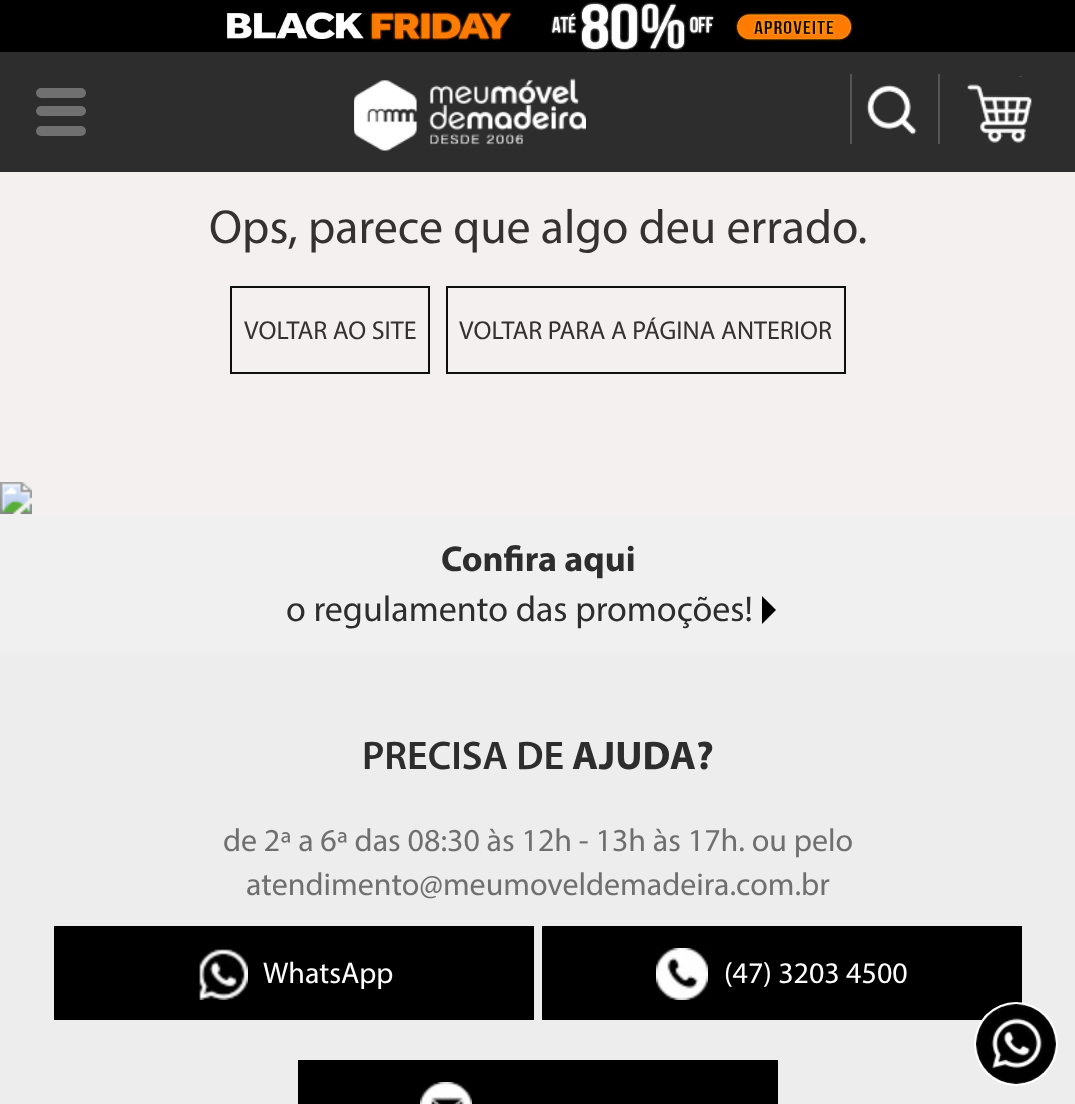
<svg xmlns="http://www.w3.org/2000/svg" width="1075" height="1104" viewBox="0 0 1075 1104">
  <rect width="100%" height="100%" fill="#000"/>
  <image x="227" y="2" width="626" height="49" href="img/1.png"/>
  <path d="M0 52h1075v120H0z" fill="#2d2d2d"/>
  <rect x="36" y="106" width="50" height="10" rx="5" fill="#707070"/>
  <rect x="36" y="88" width="50" height="10" rx="5" fill="#707070"/>
  <rect x="36" y="126" width="50" height="10" rx="5" fill="#707070"/>
  <image x="354" y="78" width="232" height="73" href="img/2.png"/>
  <image x="866" y="84" width="51" height="51" href="img/3.png"/>
  <path d="M850 74h2v70H850z" fill="#555"/>
  <path d="M938 74h2v70H938z" fill="#555"/>
  <image x="967" y="76" width="65" height="67" href="img/4.png"/>
  <path d="M0 172h1075v342H0z" fill="#f4f0ef"/>
  <path d="M231 287h198v86H231z" fill="none" stroke="#0f0f0e" stroke-width="2"/>
  <path d="M447 287h398v86H447z" fill="none" stroke="#0f0f0e" stroke-width="2"/>
  <image x="0" y="482" width="32" height="32" href="img/5.png"/>
  <path d="M0 514h1075v140H0z" fill="#f0f0f0"/>
  <path d="M762 624V596L776 610Z" fill="#000"/>
  <path d="M0 654h1075v450H0z" fill="#ededed"/>
  <path d="M54 926h480v94H54z" fill="#000"/>
  <image x="199" y="949" width="49" height="51" href="img/6.png"/>
  <path d="M542 926h480v94H542z" fill="#000"/>
  <image x="656" y="948" width="52" height="52" href="img/7.png"/>
  <path d="M298 1060h480v44H298z" fill="#000"/>
  <image x="420" y="1082" width="52" height="22" href="img/8.png"/>
  <circle cx="1016" cy="1044" r="42" fill="#fff"/>
  <image x="976" y="1004" width="80" height="80" href="img/9.png"/>
  <text x="209" y="243" font-family="Myriad" font-size="48" fill="#353131">Ops, parece que algo deu errado.</text>
  <g font-family="Myriad" font-size="26" fill="#353131">
    <text x="244" y="339">VOLTAR AO SITE</text>
    <text x="459" y="339">VOLTAR PARA A PÁGINA ANTERIOR</text>
  </g>
  <text x="441" y="571" font-family="Myriad" font-size="36" font-weight="bold" fill="#2d2d2d">Confira aqui</text>
  <text x="286" y="621" font-family="Myriad" font-size="36" fill="#2d2d2d">o regulamento das promoções!</text>
  <text x="362" y="769" font-family="Myriad" font-size="40" font-weight="600" fill="#2d2d2d">PRECISA DE</text>
  <text x="572" y="769" font-family="Myriad" font-size="40" font-weight="bold" fill="#2d2d2d">AJUDA?</text>
  <g font-family="Myriad" font-size="32" fill="#6f6f6f">
    <text x="223" y="851">de 2ª a 6ª das 08:30 às 12h - 13h às 17h. ou pelo</text>
    <text x="246" y="895">atendimento@meumoveldemadeira.com.br</text>
  </g>
  <g font-family="Myriad" font-size="30" fill="#fff">
    <text x="263" y="983">WhatsApp</text>
    <text x="724" y="983">(47) 3203 4500</text>
  </g>
</svg>
